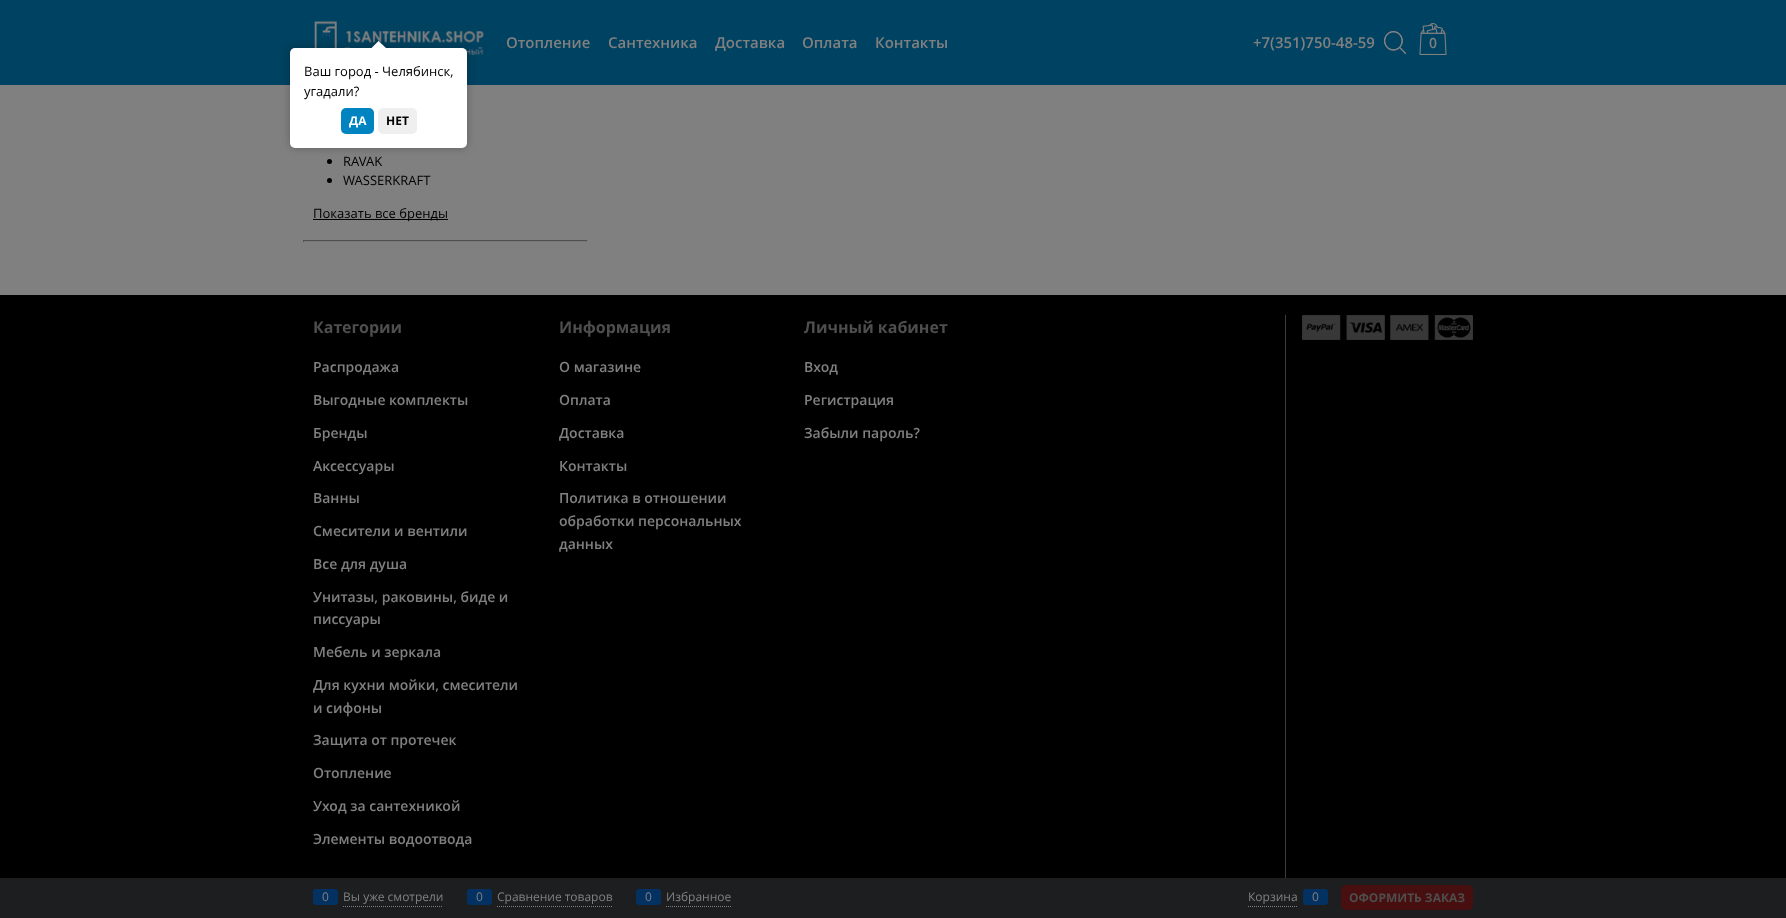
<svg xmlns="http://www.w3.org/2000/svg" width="1786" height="918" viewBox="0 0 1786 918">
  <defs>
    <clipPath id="clip1"><path d="M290 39h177v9H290z"/></clipPath>
    <clipPath id="clip2"><path d="M290 39h177v9H290z"/></clipPath>
  </defs>
  <rect width="100%" height="100%" fill="#808080"/>
  <path d="M0 0h1786v85H0z" fill="#004261"/>
  <image x="314" y="21" width="170" height="43" href="img/1.png"/>
  <image x="1384" y="31" width="22" height="23" href="img/2.png"/>
  <image x="1419" y="23" width="28" height="32" href="img/3.png"/>
  <circle cx="329.5" cy="161.5" r="2.5" fill="#000"/>
  <circle cx="329.5" cy="180.5" r="2.5" fill="#000"/>
  <path d="M313 219h135v1H313z" fill="#000"/>
  <path d="M303 240h285v1H303z" fill="#505050"/>
  <path d="M587 240h1v2H587z" fill="#777"/>
  <path d="M303 241h285v1H303z" fill="#777"/>
  <path d="M303 240h1v2H303z" fill="#505050"/>
  <path d="M0 295h1786v583H0z" fill="#000"/>
  <path d="M1285 315h1v563H1285z" fill="#3c3c3c"/>
  <image x="1302" y="315" width="171" height="25" href="img/4.png"/>
  <path d="M0 878h1786v40H0z" fill="#1c1e20"/>
  <path d="M343 906.5H443" fill="none" stroke="#808080" stroke-dasharray="1 1"/>
  <rect x="313" y="889" width="25" height="16" rx="3" fill="#033161"/>
  <path d="M497 906.5H612" fill="none" stroke="#808080" stroke-dasharray="1 1"/>
  <rect x="467" y="889" width="25" height="16" rx="3" fill="#033161"/>
  <path d="M666 906.5H731" fill="none" stroke="#808080" stroke-dasharray="1 1"/>
  <rect x="636" y="889" width="25" height="16" rx="3" fill="#033161"/>
  <path d="M1248 906.5H1298" fill="none" stroke="#808080" stroke-dasharray="1 1"/>
  <rect x="1303" y="889" width="25" height="16" rx="3" fill="#033161"/>
  <rect x="1341" y="885" width="132" height="25" rx="5" fill="#470f10"/>
  <rect x="290" y="48" width="177" height="100" rx="5" fill="#00000040" filter="blur(4.5px)"/>
  <rect x="290" y="48" width="177" height="100" rx="5" fill="#fff"/>
  <g clip-path="url(#clip1)">
    <path d="M374 43h10v10H374z" fill="#00000040" filter="blur(4.5px)"/>
  </g>
  <g clip-path="url(#clip2)">
    <path d="M378.5 41L386 48L378.5 55L371.5 48Z" fill="#fff"/>
  </g>
  <rect x="341" y="108" width="33" height="26" rx="5" fill="#0083c1"/>
  <rect x="378" y="108" width="39" height="26" rx="5" fill="#efefef"/>
  <g font-family="Open Sans" font-size="15" font-weight="600" fill="#808080">
    <text x="506" y="48">Отопление</text>
    <text x="608" y="48">Сантехника</text>
    <text x="715" y="48">Доставка</text>
    <text x="802" y="48">Оплата</text>
    <text x="875" y="48">Контакты</text>
    <text x="1253" y="48">+7(351)750-48-59</text>
  </g>
  <text x="1429" y="48" font-family="Open Sans" font-size="14" font-weight="600" fill="#808080">0</text>
  <g font-family="Open Sans" font-size="13" fill="#000">
    <text x="343" y="166">RAVAK</text>
    <text x="343" y="185">WASSERKRAFT</text>
    <text x="313" y="218">Показать все бренды</text>
  </g>
  <text x="313" y="333" font-family="Open Sans" font-size="16" font-weight="bold" fill="#4e4e4e">Категории</text>
  <g font-family="Open Sans" font-size="14" font-weight="600" fill="#808080">
    <text x="313" y="372">Распродажа</text>
    <text x="313" y="405">Выгодные комплекты</text>
    <text x="313" y="438">Бренды</text>
    <text x="313" y="471">Аксессуары</text>
    <text x="313" y="503">Ванны</text>
    <text x="313" y="536">Смесители и вентили</text>
    <text x="313" y="569">Все для душа</text>
    <text x="313" y="602">Унитазы, раковины, биде и</text>
    <text x="313" y="624">писсуары</text>
    <text x="313" y="657">Мебель и зеркала</text>
    <text x="313" y="690">Для кухни мойки, смесители</text>
    <text x="313" y="713">и сифоны</text>
    <text x="313" y="745">Защита от протечек</text>
    <text x="313" y="778">Отопление</text>
    <text x="313" y="811">Уход за сантехникой</text>
    <text x="313" y="844">Элементы водоотвода</text>
  </g>
  <text x="559" y="333" font-family="Open Sans" font-size="16" font-weight="bold" fill="#4e4e4e">Информация</text>
  <g font-family="Open Sans" font-size="14" font-weight="600" fill="#808080">
    <text x="559" y="372">О магазине</text>
    <text x="559" y="405">Оплата</text>
    <text x="559" y="438">Доставка</text>
    <text x="559" y="471">Контакты</text>
    <text x="559" y="503">Политика в отношении</text>
    <text x="559" y="526">обработки персональных</text>
    <text x="559" y="549">данных</text>
  </g>
  <text x="804" y="333" font-family="Open Sans" font-size="16" font-weight="bold" fill="#4e4e4e">Личный кабинет</text>
  <g font-family="Open Sans" font-size="14" font-weight="600" fill="#808080">
    <text x="804" y="372">Вход</text>
    <text x="804" y="405">Регистрация</text>
    <text x="804" y="438">Забыли пароль?</text>
  </g>
  <g font-family="Open Sans" font-size="12" fill="#808080">
    <text x="322" y="901">0</text>
    <text x="343" y="901">Вы уже смотрели</text>
    <text x="476" y="901">0</text>
    <text x="497" y="901">Сравнение товаров</text>
    <text x="645" y="901">0</text>
    <text x="666" y="901">Избранное</text>
    <text x="1248" y="901">Корзина</text>
    <text x="1312" y="901">0</text>
  </g>
  <text x="1349" y="902" font-family="Open Sans" font-size="12" font-weight="bold" fill="#4e4e4e">ОФОРМИТЬ ЗАКАЗ</text>
  <g font-family="Open Sans" font-size="13" fill="#000">
    <text x="304" y="76">Ваш город - Челябинск,</text>
    <text x="304" y="96">угадали?</text>
  </g>
  <text x="349" y="125" font-family="Open Sans" font-size="12" font-weight="bold" fill="#fff">ДА</text>
  <text x="386" y="125" font-family="Open Sans" font-size="12" font-weight="bold" fill="#000">НЕТ</text>
</svg>
